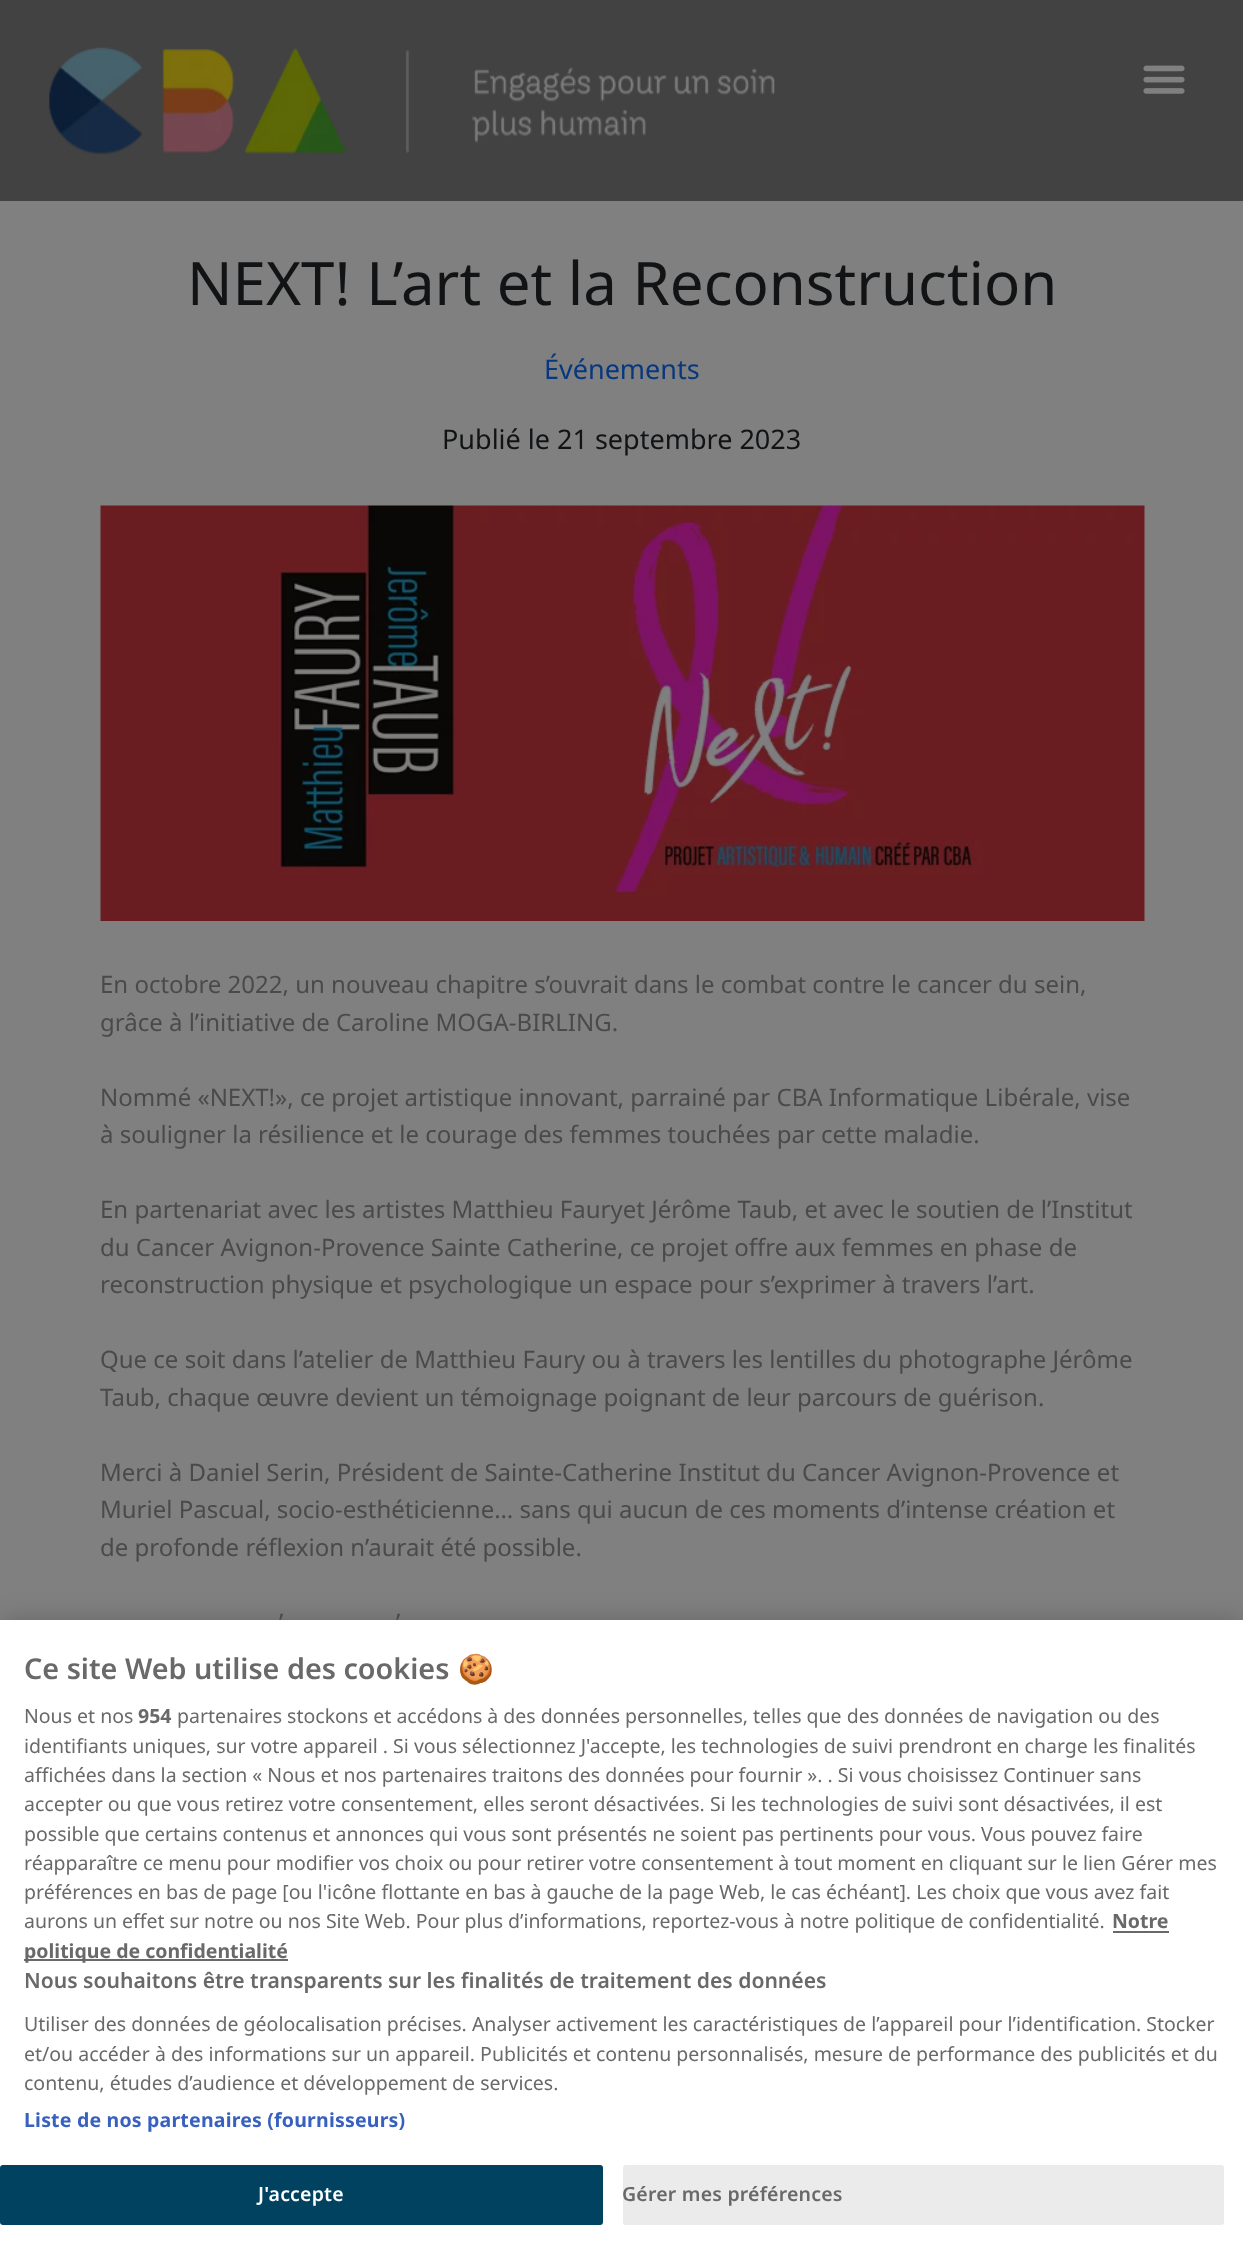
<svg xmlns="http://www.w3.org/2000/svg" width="1243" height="2248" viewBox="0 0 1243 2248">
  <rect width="100%" height="100%" fill="#808080"/>
  <path d="M0 0h1243v201H0z" fill="#424242"/>
  <image x="49" y="47" width="726" height="107" href="img/1.png"/>
  <image x="1143" y="65" width="42" height="29" href="img/2.png"/>
  <image x="100" y="505" width="1045" height="416" href="img/3.png"/>
  <path d="M0 1620h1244v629H0z" fill="#00000033" filter="blur(13.5px)"/>
  <path d="M0 1620h1243v628H0z" fill="#fff"/>
  <path d="M1113 1931h56v2H1113z" fill="#696969"/>
  <path d="M24 1959h264v2H24z" fill="#696969"/>
  <rect y="2165" width="603" height="60" rx="3" fill="#004260"/>
  <rect x="623" y="2165" width="601" height="60" rx="3" fill="#ebebeb"/>
  <text x="187" y="305" font-family="Noto Sans" font-size="60" fill="#111315">NEXT! L’art et la Reconstruction</text>
  <text x="544" y="379" font-family="Noto Sans" font-size="27" fill="#07377f">Événements</text>
  <text x="442" y="449" font-family="Noto Sans" font-size="27" fill="#111315">Publié le 21 septembre 2023</text>
  <g font-family="Noto Sans" font-size="24" fill="#4a4a4a">
    <text x="100" y="993">En octobre 2022, un nouveau chapitre s’ouvrait dans le combat contre le cancer du sein,</text>
    <text x="100" y="1031">grâce à l’initiative de Caroline MOGA-BIRLING.</text>
    <text x="100" y="1106">Nommé «NEXT!», ce projet artistique innovant, parrainé par CBA Informatique Libérale, vise</text>
    <text x="100" y="1143">à souligner la résilience et le courage des femmes touchées par cette maladie.</text>
    <text x="100" y="1218">En partenariat avec les artistes Matthieu Fauryet Jérôme Taub, et avec le soutien de l’Institut</text>
    <text x="100" y="1256">du Cancer Avignon-Provence Sainte Catherine, ce projet offre aux femmes en phase de</text>
    <text x="100" y="1293">reconstruction physique et psychologique un espace pour s’exprimer à travers l’art.</text>
    <text x="100" y="1368">Que ce soit dans l’atelier de Matthieu Faury ou à travers les lentilles du photographe Jérôme</text>
    <text x="100" y="1406">Taub, chaque œuvre devient un témoignage poignant de leur parcours de guérison.</text>
    <text x="100" y="1481">Merci à Daniel Serin, Président de Sainte-Catherine Institut du Cancer Avignon-Provence et</text>
    <text x="100" y="1518">Muriel Pascual, socio-esthéticienne… sans qui aucun de ces moments d’intense création et</text>
    <text x="100" y="1556">de profonde réflexion n’aurait été possible.</text>
    <text x="279" y="1631">’</text>
    <text x="396" y="1631">’</text>
  </g>
  <text x="24" y="1679" font-family="Noto Sans" font-size="28.75" font-weight="600" fill="#696969">Ce site Web utilise des cookies</text>
  <text x="458" y="1679" font-family="Noto Color Emoji" font-size="28.75" fill="#696969">🍪</text>
  <text x="24" y="1723" font-family="Noto Sans" font-size="19.5" fill="#696969">Nous et nos</text>
  <text x="138" y="1723" font-family="Noto Sans" font-size="19.5" font-weight="bold" fill="#696969">954</text>
  <g font-family="Noto Sans" font-size="19.5" fill="#696969">
    <text x="177" y="1723">partenaires stockons et accédons à des données personnelles, telles que des données de navigation ou des</text>
    <text x="24" y="1753">identifiants uniques, sur votre appareil . Si vous sélectionnez J'accepte, les technologies de suivi prendront en charge les finalités</text>
    <text x="24" y="1782">affichées dans la section « Nous et nos partenaires traitons des données pour fournir ». . Si vous choisissez Continuer sans</text>
    <text x="24" y="1811">accepter ou que vous retirez votre consentement, elles seront désactivées.</text>
    <text x="710" y="1811">Si les technologies de suivi sont désactivées, il est</text>
    <text x="24" y="1841">possible que certains contenus et annonces qui vous sont présentés ne soient pas pertinents pour vous. Vous pouvez faire</text>
    <text x="24" y="1870">réapparaître ce menu pour modifier vos choix ou pour retirer votre consentement à tout moment en cliquant sur le lien Gérer mes</text>
    <text x="24" y="1899">préférences en bas de page [ou l'icône flottante en bas à gauche de la page Web, le cas échéant]. Les choix que vous avez fait</text>
    <text x="24" y="1928">aurons un effet sur notre ou nos Site Web. Pour plus d’informations, reportez-vous à notre politique de confidentialité.</text>
  </g>
  <g font-family="Noto Sans" font-size="19.5" font-weight="bold" fill="#696969">
    <text x="1112" y="1928">Notre</text>
    <text x="24" y="1958">politique de confidentialité</text>
  </g>
  <text x="24" y="1988" font-family="Noto Sans" font-size="21.1" font-weight="600" fill="#696969">Nous souhaitons être transparents sur les finalités de traitement des données</text>
  <g font-family="Noto Sans" font-size="19.5" fill="#696969">
    <text x="24" y="2031">Utiliser des données de géolocalisation précises. Analyser activement les caractéristiques de l’appareil pour l’identification. Stocker</text>
    <text x="24" y="2061">et/ou accéder à des informations sur un appareil. Publicités et contenu personnalisés, mesure de performance des publicités et du</text>
    <text x="24" y="2090">contenu, études d’audience et développement de services.</text>
  </g>
  <text x="24" y="2127" font-family="Noto Sans" font-size="19.5" font-weight="bold" letter-spacing="0.2" fill="#3860be">Liste de nos partenaires (fournisseurs)</text>
  <text x="258" y="2201" font-family="Noto Sans" font-size="19.5" font-weight="600" letter-spacing="0.2" fill="#fff">J'accepte</text>
  <text x="622" y="2201" font-family="Noto Sans" font-size="19.5" font-weight="600" letter-spacing="0.2" fill="#696969">Gérer mes préférences</text>
</svg>
